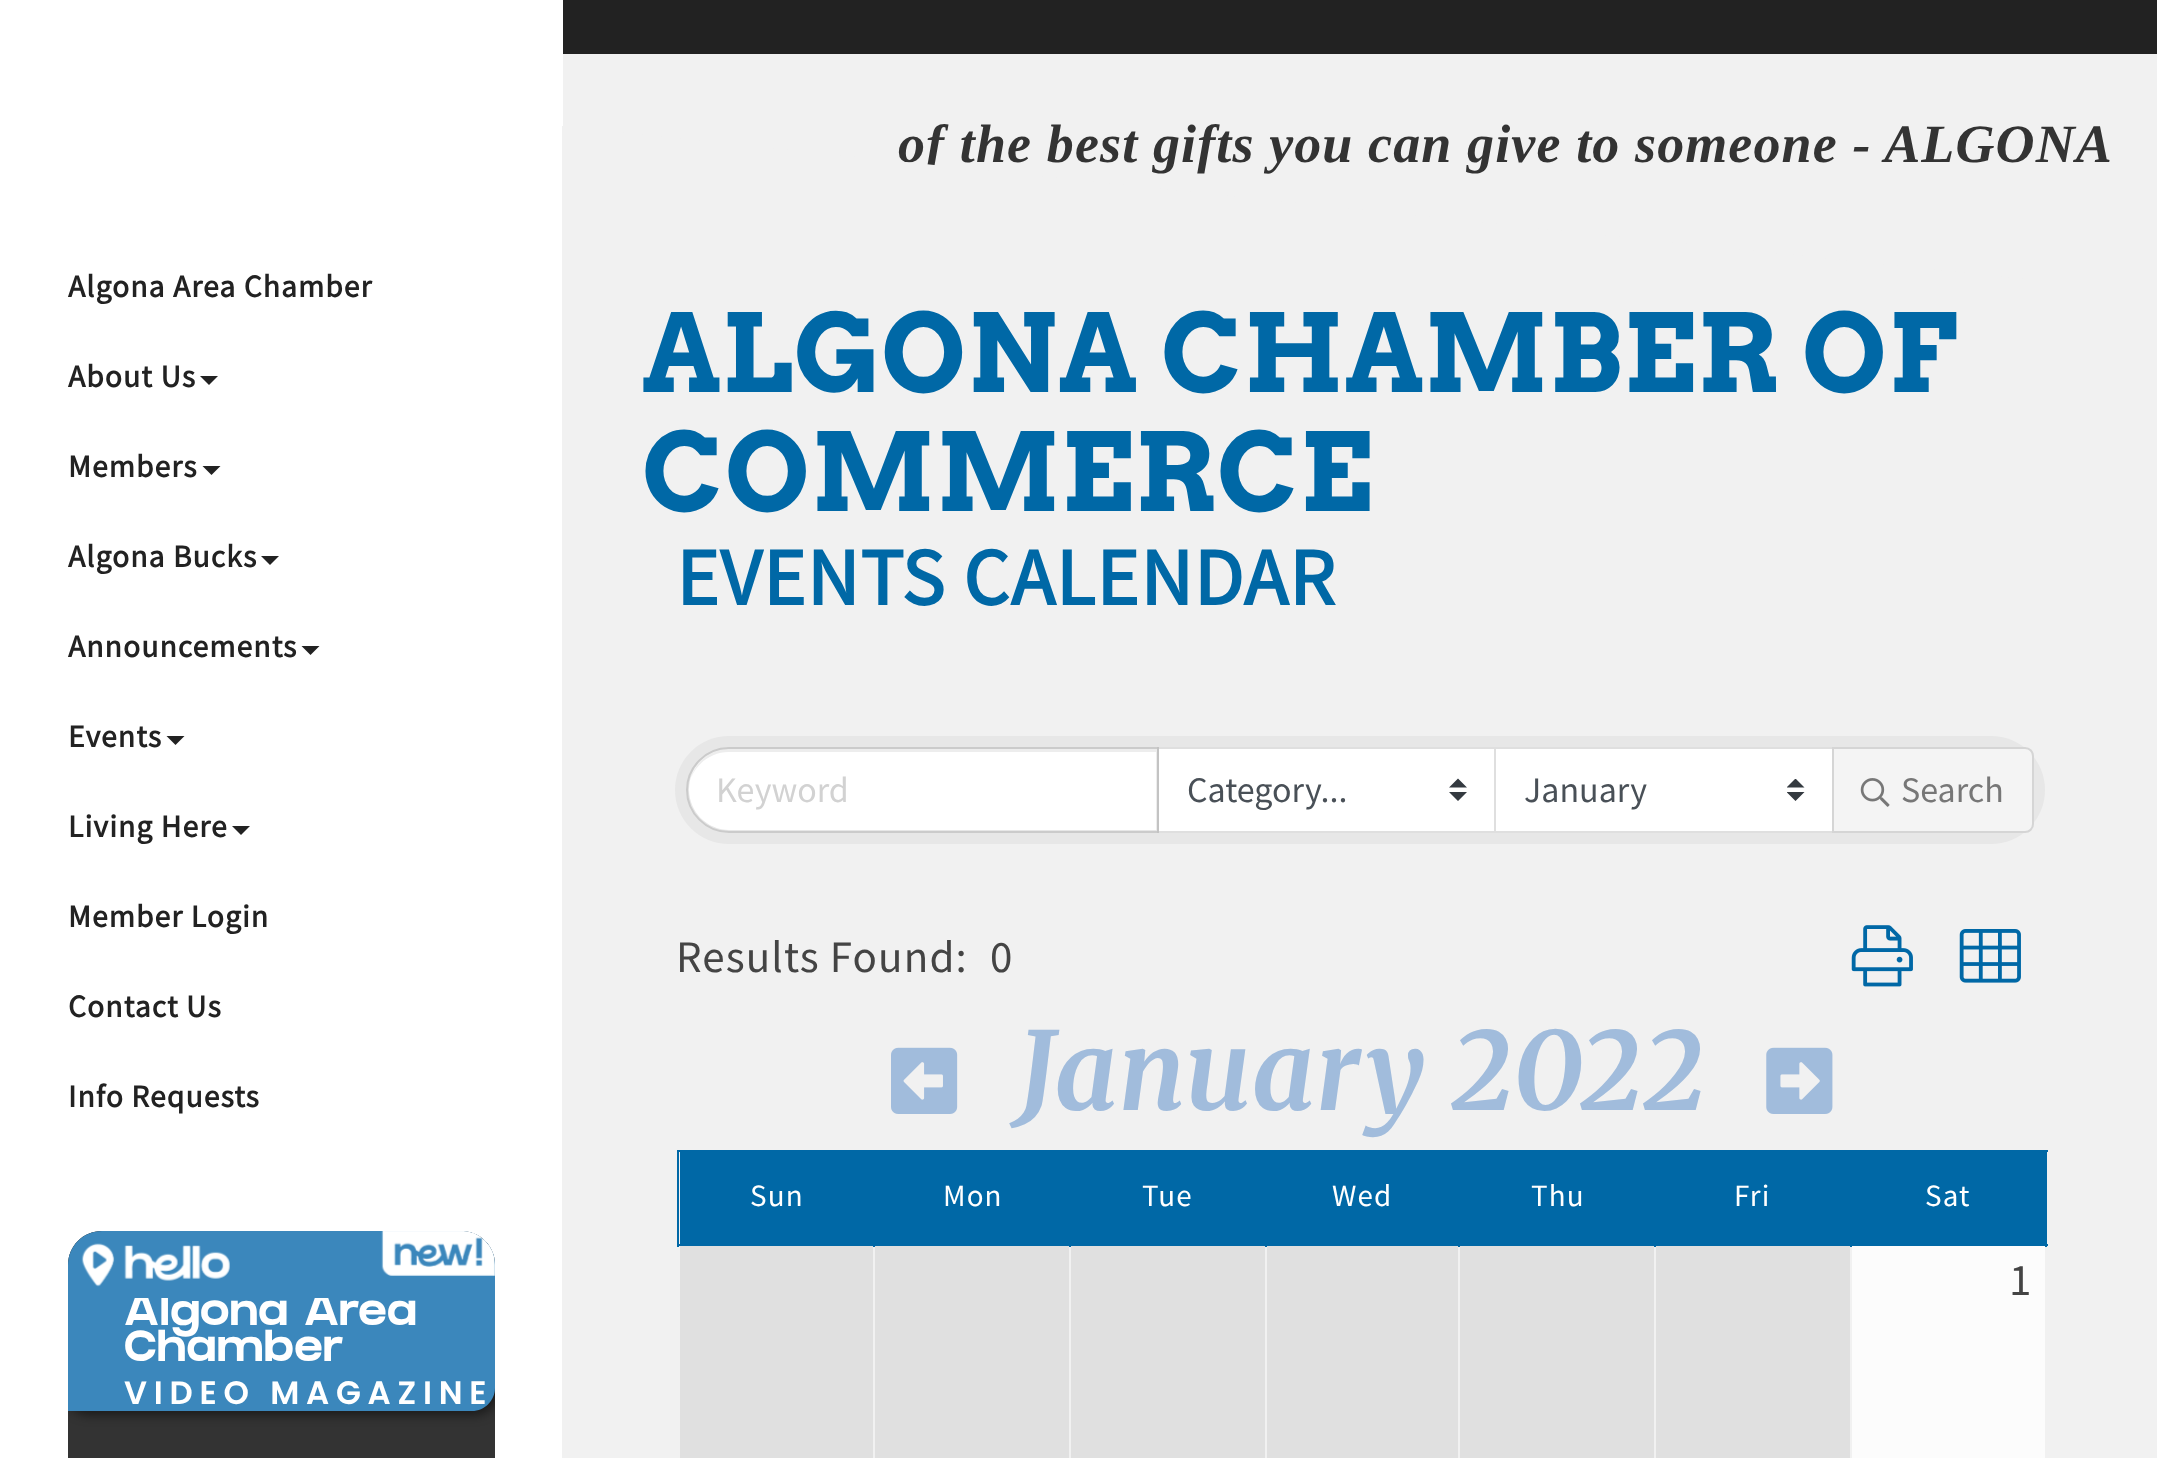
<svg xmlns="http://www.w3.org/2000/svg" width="2157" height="1458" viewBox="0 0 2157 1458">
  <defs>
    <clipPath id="clip1"><rect x="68" y="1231" width="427" height="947" rx="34"/></clipPath>
    <clipPath id="clip2"><path d="M68 1298h427v72H68z"/></clipPath>
    <clipPath id="clip3"><path d="M1787 779h18v22H1787z"/></clipPath>
  </defs>
  <rect width="100%" height="100%" fill="#222"/>
  <path d="M0 0h563v1458H0z" fill="#fff"/>
  <path d="M200 376H218L209 385Z" fill="#222"/>
  <path d="M202.5 466H220.5L211.5 475Z" fill="#222"/>
  <path d="M261 556H279L270 565Z" fill="#222"/>
  <path d="M301.5 646H319.5L310.5 655Z" fill="#222"/>
  <path d="M166.5 736H184.5L175.5 745Z" fill="#222"/>
  <path d="M232 826H250L241 835Z" fill="#222"/>
  <path d="M102 1231H461C480 1231 495 1246 495 1265V1458H68V1265C68 1246 83 1231 102 1231Z" fill="#333"/>
  <g clip-path="url(#clip1)">
    <rect x="63" y="1226" width="437" height="189" rx="27" fill="#00000080" filter="blur(5.5px)"/>
  </g>
  <path d="M102 1231H461C480 1231 495 1246 495 1265V1388C495 1400.5 484.5 1411 472 1411H68V1265C68 1246 83 1231 102 1231Z" fill="#3b87bc"/>
  <image x="81" y="1243" width="149" height="44" href="img/1.png"/>
  <image x="381" y="1231" width="114" height="45" href="img/2.png"/>
  <path d="M563 54h1594v239H563z" fill="#f1f1f1"/>
  <g font-family="Source Sans Pro" font-size="31.5" font-weight="bold" letter-spacing="1.12" fill="#222">
    <text x="68" y="297">Algona Area Chamber</text>
    <text x="68" y="387">About Us</text>
    <text x="68" y="477">Members</text>
    <text x="68" y="567">Algona Bucks</text>
    <text x="68" y="657">Announcements</text>
    <text x="68" y="747">Events</text>
    <text x="68" y="837">Living Here</text>
    <text x="68" y="927">Member Login</text>
    <text x="68" y="1017">Contact Us</text>
    <text x="68" y="1107">Info Requests</text>
  </g>
  <g clip-path="url(#clip2)">
    <text x="124" y="1325" font-family="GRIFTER" font-size="43.25" font-weight="bold" letter-spacing="1.12" fill="#fff">Algona Area</text>
  </g>
  <text x="124" y="1361" font-family="GRIFTER" font-size="43.25" font-weight="bold" letter-spacing="1.12" fill="#fff">Chamber</text>
  <text x="124" y="1404" font-family="Poppins" font-size="32.4" font-weight="600" letter-spacing="6.75" fill="#fff">VIDEO MAGAZINE</text>
  <text x="898" y="162" font-family="Liberation Serif" font-size="54" font-weight="bold" font-style="italic" letter-spacing="1.12" fill="#333">of the best gifts you can give to someone - ALGONA</text>
  <path d="M562 126L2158 293V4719L562 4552Z" fill="#f1f1f1"/>
  <g font-family="Arvo" font-size="108" font-weight="bold" letter-spacing="1.12" fill="#0068a6">
    <text x="642" y="392">ALGONA CHAMBER OF</text>
    <text x="642" y="511">COMMERCE</text>
  </g>
  <text x="676" y="605" font-family="Source Sans Pro" font-size="81" font-weight="bold" letter-spacing="1.12" fill="#0068a6">EVENTS CALENDAR</text>
  <rect x="675" y="736" width="1370" height="108" rx="54" fill="#e7e7e7"/>
  <path d="M729.5 749H1157V830H729.5C707 830 689 812 689 789.5C689 767 707 749 729.5 749Z" fill="#fff"/>
  <path d="M729 752H1156V830H1157V749H730C711 749 696 761 691 778C697 763 712 752 729 752Z" fill="#00000012"/>
  <path d="M1159 749h335v82H1159z" fill="#fff"/>
  <path d="M1458 778.5L1449 787.5H1467ZM1458 801L1449 792H1467Z" fill="#343a40"/>
  <path d="M1158 748h337v84H1158z" fill="none" stroke="#dfdfdf" stroke-width="2"/>
  <path d="M729 748H1158V832H729C706 832 687 813 687 790C687 767 706 748 729 748Z" fill="none" stroke="#0000001f" stroke-width="2"/>
  <text x="716" y="802" font-family="Source Sans Pro" font-size="36" fill="#d2d2d2">Keyword</text>
  <text x="1187" y="802" font-family="Source Sans Pro" font-size="36" fill="#495057">Category...</text>
  <path d="M1496 749h336v82H1496z" fill="#fff"/>
  <g clip-path="url(#clip3)">
    <path d="M1795.5 778.5L1786.5 787.5H1804.5ZM1795.5 801L1786.5 792H1804.5Z" fill="#343a40"/>
  </g>
  <path d="M1495 748h338v84H1495z" fill="none" stroke="#dfdfdf" stroke-width="2"/>
  <text x="1524" y="802" font-family="Source Sans Pro" font-size="36" fill="#495057">January</text>
  <path d="M1833 748H2025C2029.5 748 2033 751.5 2033 756V824C2033 828.5 2029.5 832 2025 832H1833Z" fill="#f4f4f4" stroke="#d5d5d5" stroke-width="2"/>
  <image x="1860" y="778" width="30" height="29" href="img/3.png"/>
  <text x="1901" y="802" font-family="Source Sans Pro" font-size="36" fill="#777">Search</text>
  <g font-family="Source Sans Pro" font-size="45" letter-spacing="1.12" fill="#444">
    <text x="676" y="972">Results Found:</text>
    <text x="990" y="972">0</text>
  </g>
  <image x="1851" y="925" width="62" height="62" href="img/4.png"/>
  <image x="1959" y="929" width="62" height="54" href="img/5.png"/>
  <image x="891" y="1047" width="67" height="67" href="img/6.png"/>
  <text x="1019" y="1110" font-family="Merriweather" font-size="108" font-weight="300" font-style="italic" letter-spacing="1.12" fill="#a1bcdc">January 2022</text>
  <image x="1766" y="1047" width="67" height="67" href="img/7.png"/>
  <path d="M680 1152h193v92H680z" fill="#0068a6"/>
  <text x="750" y="1206" font-family="Source Sans Pro" font-size="31" letter-spacing="1.12" fill="#fff">Sun</text>
  <path d="M875 1152h194v92H875z" fill="#0068a6"/>
  <text x="943" y="1206" font-family="Source Sans Pro" font-size="31" letter-spacing="1.12" fill="#fff">Mon</text>
  <path d="M1071 1152h194v92H1071z" fill="#0068a6"/>
  <text x="1142" y="1206" font-family="Source Sans Pro" font-size="31" letter-spacing="1.12" fill="#fff">Tue</text>
  <path d="M1267 1152h191v92H1267z" fill="#0068a6"/>
  <text x="1332" y="1206" font-family="Source Sans Pro" font-size="31" letter-spacing="1.12" fill="#fff">Wed</text>
  <path d="M1460 1152h194v92H1460z" fill="#0068a6"/>
  <text x="1531" y="1206" font-family="Source Sans Pro" font-size="31" letter-spacing="1.12" fill="#fff">Thu</text>
  <path d="M1656 1152h194v92H1656z" fill="#0068a6"/>
  <text x="1734" y="1206" font-family="Source Sans Pro" font-size="31" letter-spacing="1.12" fill="#fff">Fri</text>
  <path d="M1852 1152h193v92H1852z" fill="#0068a6"/>
  <path d="M1850 1150h198v2H1850z" fill="#0068a6"/>
  <path d="M2045 1150h2v97H2045z" fill="#0068a6"/>
  <path d="M1850 1244h198v2H1850z" fill="#0068a6"/>
  <path d="M1850 1150h2v97H1850z" fill="#0068a6"/>
  <path d="M1654 1244h198v2H1654z" fill="#0068a6"/>
  <path d="M1654 1150h198v2H1654z" fill="#0068a6"/>
  <path d="M1654 1150h2v97H1654z" fill="#0068a6"/>
  <path d="M1458 1244h198v2H1458z" fill="#0068a6"/>
  <path d="M1458 1150h198v2H1458z" fill="#0068a6"/>
  <path d="M1458 1150h2v97H1458z" fill="#0068a6"/>
  <path d="M1265 1244h195v2H1265z" fill="#0068a6"/>
  <path d="M1265 1150h195v2H1265z" fill="#0068a6"/>
  <path d="M1265 1150h2v97H1265z" fill="#0068a6"/>
  <path d="M1069 1244h198v2H1069z" fill="#0068a6"/>
  <path d="M1069 1150h198v2H1069z" fill="#0068a6"/>
  <path d="M1069 1150h2v97H1069z" fill="#0068a6"/>
  <path d="M873 1244h198v2H873z" fill="#0068a6"/>
  <path d="M873 1150h198v2H873z" fill="#0068a6"/>
  <path d="M873 1150h2v97H873z" fill="#0068a6"/>
  <path d="M677 1244h198v2H677z" fill="#0068a6"/>
  <path d="M677 1150h198v2H677z" fill="#0068a6"/>
  <path d="M677 1150h2v97H677z" fill="#0068a6"/>
  <text x="1925" y="1206" font-family="Source Sans Pro" font-size="31" letter-spacing="1.12" fill="#fff">Sat</text>
  <path d="M1852 1246h193v212H1852z" fill="#fcfcfc"/>
  <path d="M680 1246h193v212H680z" fill="#e0e0e0"/>
  <path d="M875 1246h194v212H875z" fill="#e0e0e0"/>
  <path d="M1071 1246h194v212H1071z" fill="#e0e0e0"/>
  <path d="M1267 1246h191v212H1267z" fill="#e0e0e0"/>
  <path d="M1460 1246h194v212H1460z" fill="#e0e0e0"/>
  <path d="M1656 1246h194v212H1656z" fill="#e0e0e0"/>
  <text x="2009" y="1295" font-family="Source Sans Pro" font-size="45" letter-spacing="1.12" fill="#444">1</text>
</svg>
